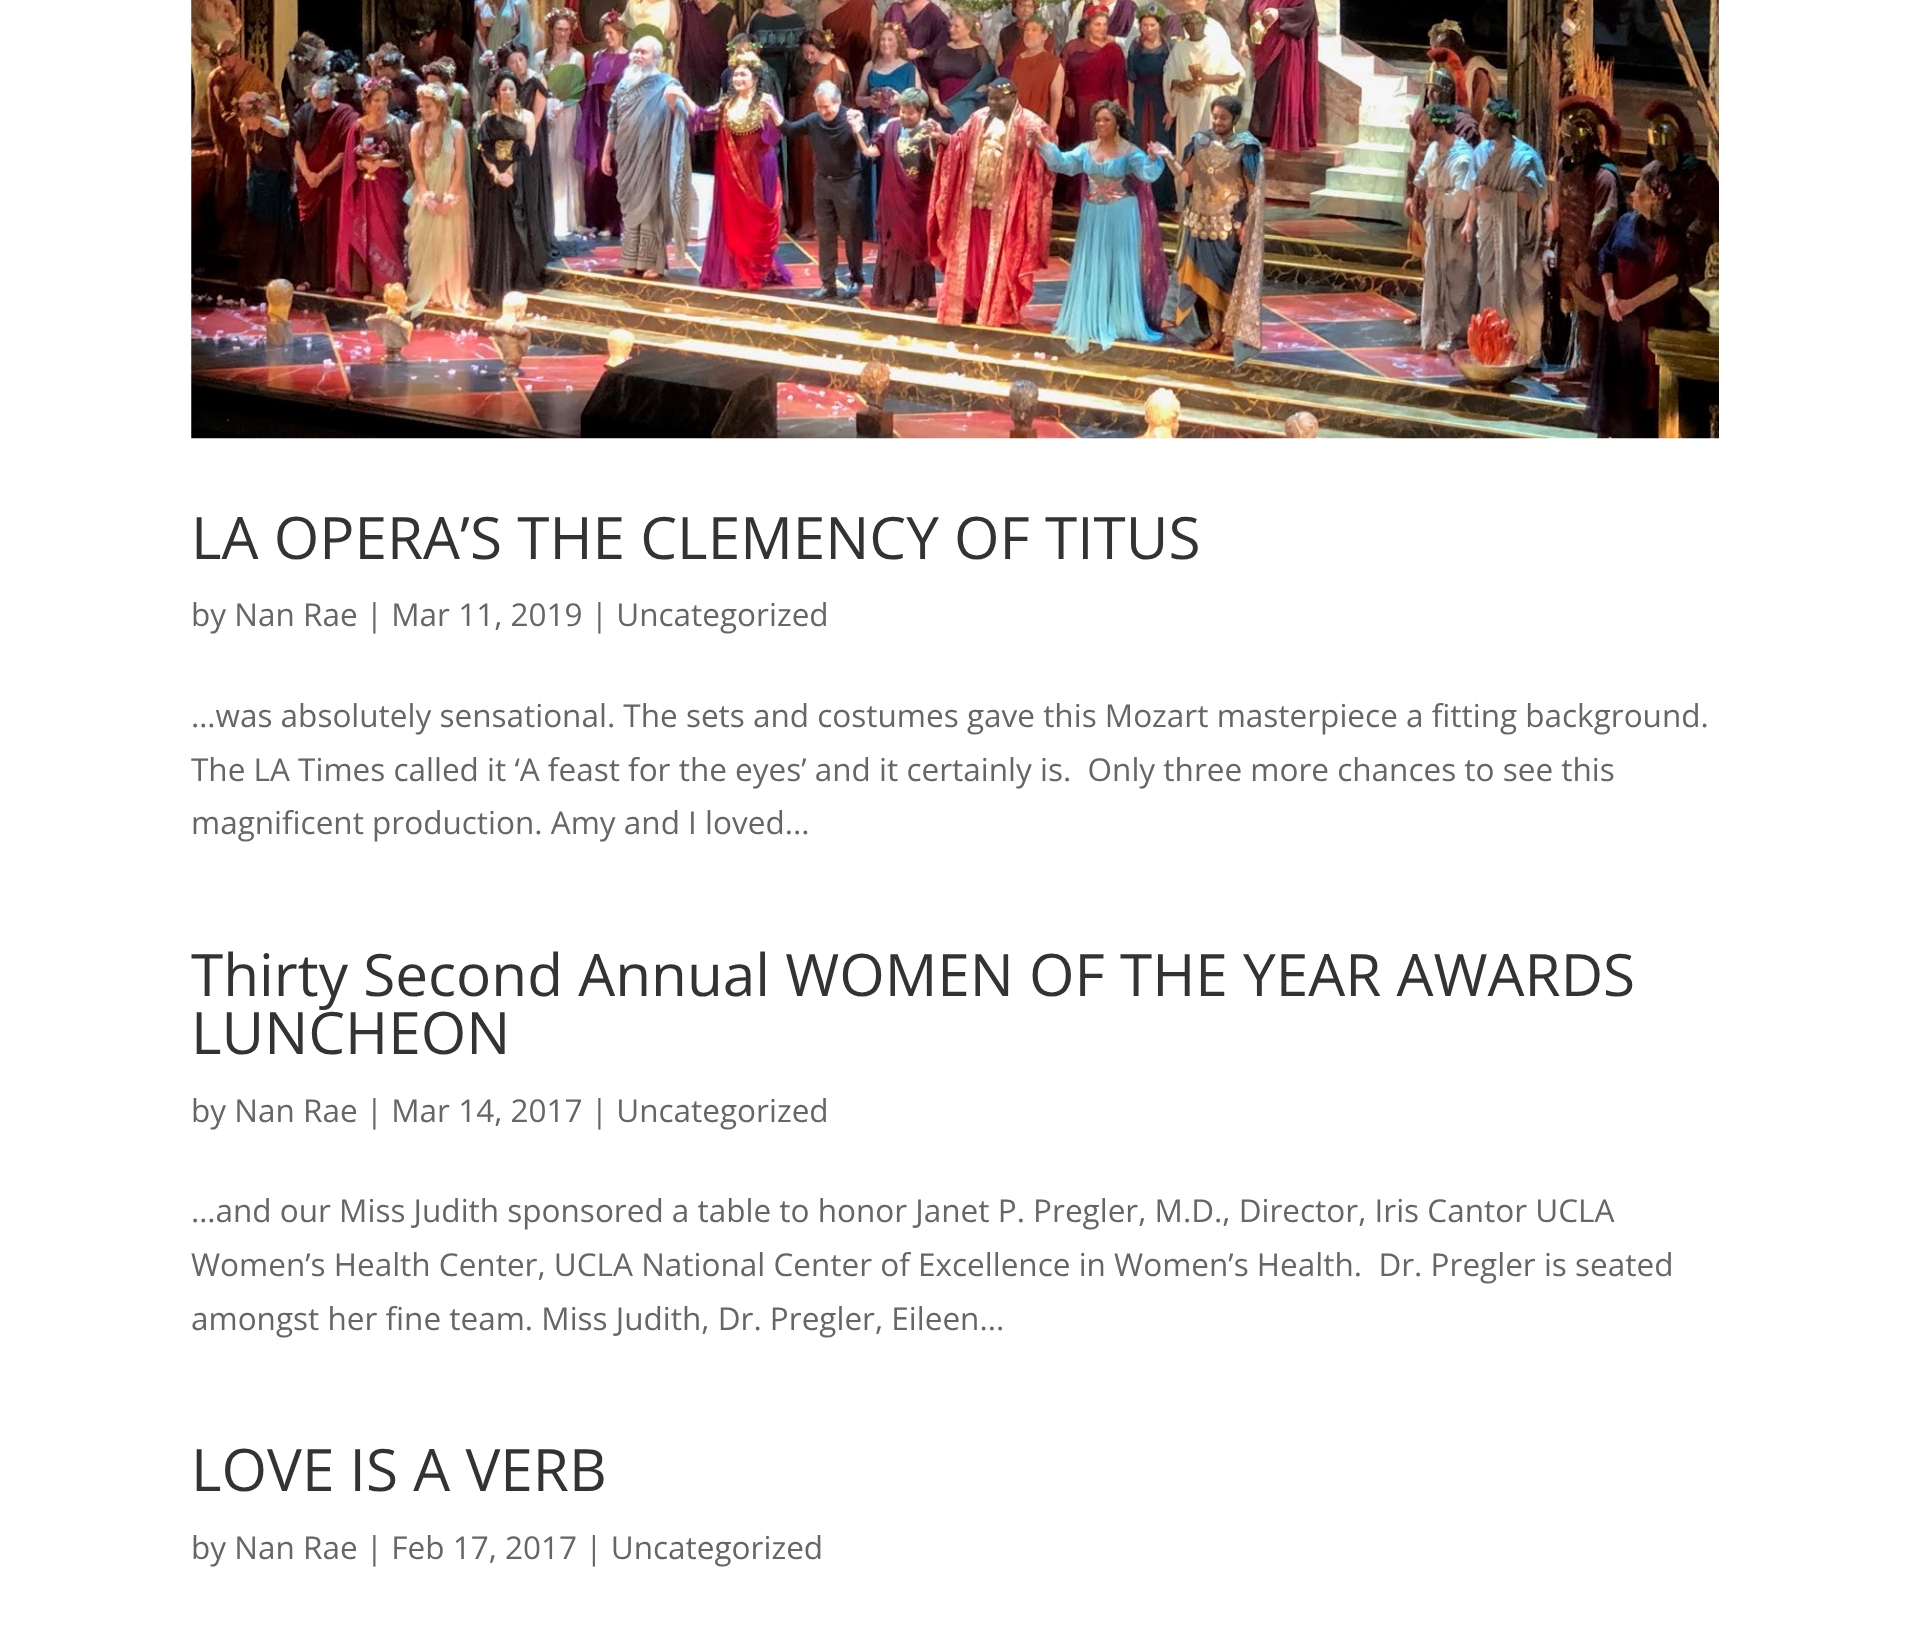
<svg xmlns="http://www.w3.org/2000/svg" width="1909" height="1647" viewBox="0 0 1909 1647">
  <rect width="100%" height="100%" fill="#fff"/>
  <image x="191" y="0" width="1528" height="439" href="img/1.png"/>
  <text x="191" y="559" font-family="Open Sans" font-size="58.5" fill="#333">LA OPERA’S THE CLEMENCY OF TITUS</text>
  <g font-family="Open Sans" font-size="31.5" fill="#666">
    <text x="191" y="626">by Nan Rae | Mar 11, 2019 | Uncategorized</text>
    <text x="191" y="727">…was absolutely sensational. The sets and costumes gave this Mozart masterpiece a fitting background.</text>
    <text x="191" y="781" xml:space="preserve">The LA Times called it ‘A feast for the eyes’ and it certainly is.  Only three more chances to see this</text>
    <text x="191" y="834">magnificent production. Amy and I loved...</text>
  </g>
  <g font-family="Open Sans" font-size="58.5" fill="#333">
    <text x="191" y="996">Thirty Second Annual WOMEN OF THE YEAR AWARDS</text>
    <text x="191" y="1054">LUNCHEON</text>
  </g>
  <g font-family="Open Sans" font-size="31.5" fill="#666">
    <text x="191" y="1122">by Nan Rae | Mar 14, 2017 | Uncategorized</text>
    <text x="191" y="1222">…and our Miss Judith sponsored a table to honor Janet P. Pregler, M.D., Director, Iris Cantor UCLA</text>
    <text x="191" y="1276" xml:space="preserve">Women’s Health Center, UCLA National Center of Excellence in Women’s Health.  Dr. Pregler is seated</text>
    <text x="191" y="1330">amongst her fine team. Miss Judith, Dr. Pregler, Eileen...</text>
  </g>
  <text x="191" y="1491" font-family="Open Sans" font-size="58.5" fill="#333">LOVE IS A VERB</text>
  <text x="191" y="1559" font-family="Open Sans" font-size="31.5" fill="#666">by Nan Rae | Feb 17, 2017 | Uncategorized</text>
</svg>
